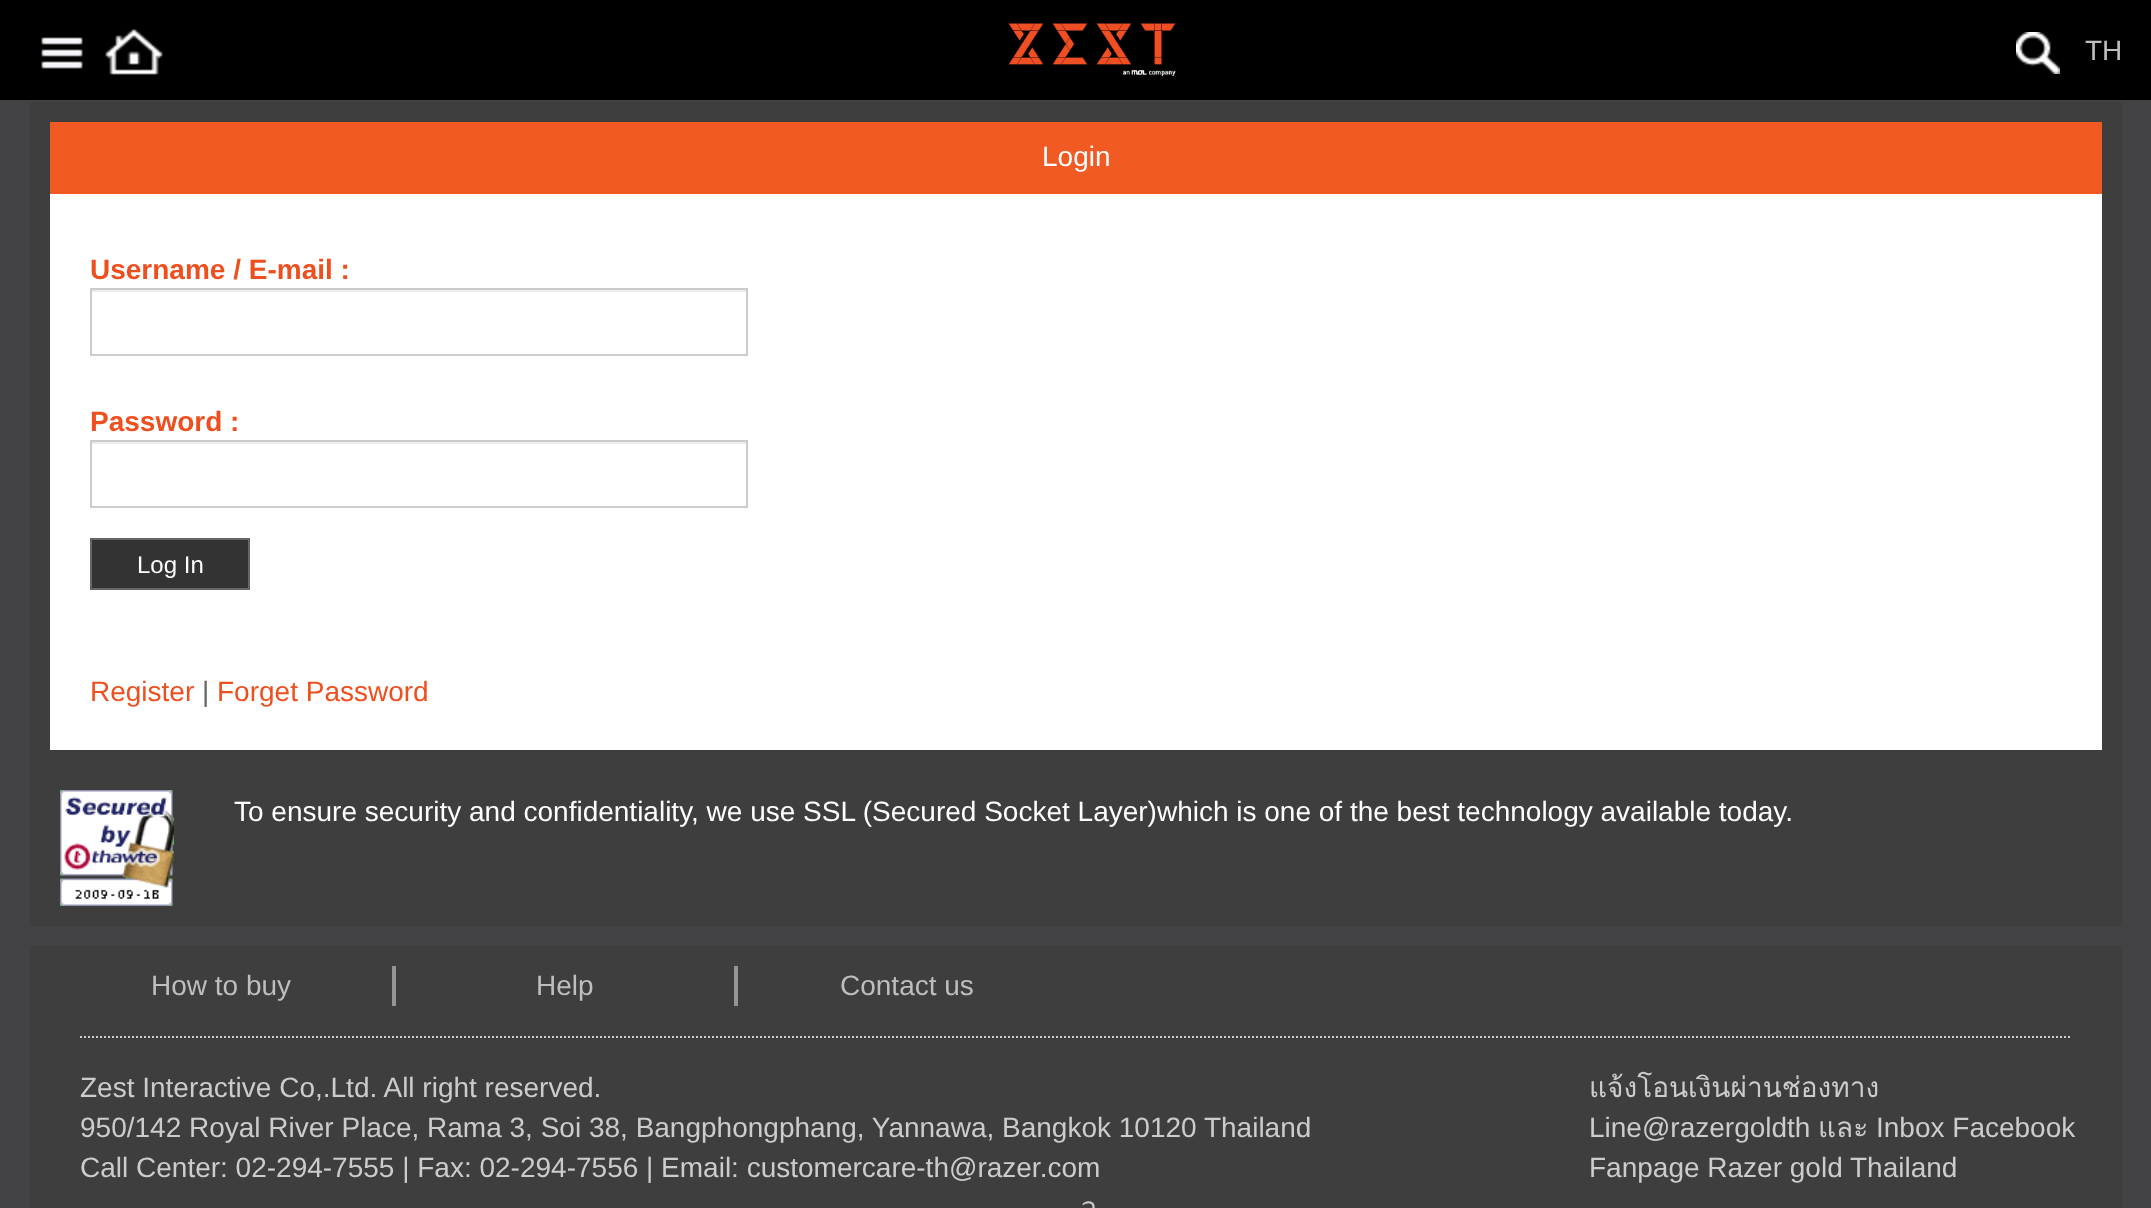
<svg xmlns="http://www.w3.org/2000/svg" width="2151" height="1208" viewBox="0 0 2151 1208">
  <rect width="100%" height="100%" fill="#434345"/>
  <path d="M0 0h2151v100H0z" fill="#000"/>
  <image x="41" y="37" width="42" height="32" href="img/1.png"/>
  <image x="105" y="29" width="58" height="46" href="img/2.png"/>
  <image x="1008" y="23" width="168" height="54" href="img/3.png"/>
  <image x="2016" y="32" width="44" height="42" href="img/4.png"/>
  <path d="M30 102h2092v824H30z" fill="#3e3e3f"/>
  <path d="M50 122h2052v70H50z" fill="#f15a22"/>
  <path d="M50 194h2052v556H50z" fill="#fff"/>
  <path d="M50 192h2052v2H50z" fill="#f05a22"/>
  <path d="M92 290h654v2H92z" fill="#ececec"/>
  <path d="M91 289h656v66H91z" fill="none" stroke="#ccc" stroke-width="2"/>
  <path d="M92 442h654v2H92z" fill="#ececec"/>
  <path d="M91 441h656v66H91z" fill="none" stroke="#ccc" stroke-width="2"/>
  <path d="M91 539h158v50H91z" fill="#333" stroke="#666" stroke-width="2"/>
  <image x="60" y="790" width="114" height="116" href="img/5.png"/>
  <path d="M30 946h2092v262H30z" fill="#3e3e3f"/>
  <path d="M392 966h4v40H392z" fill="#939597"/>
  <path d="M734 966h4v40H734z" fill="#939597"/>
  <path d="M80 1037H2072" fill="none" stroke="#ccc" stroke-width="2" stroke-dasharray="2 2"/>
  <text x="2085" y="60" font-family="Liberation Sans" font-size="28" fill="#bcbec0">TH</text>
  <text x="1042" y="166" font-family="Liberation Sans" font-size="28" fill="#fff">Login</text>
  <g font-family="Liberation Sans" font-size="28" font-weight="bold" fill="#ee4f1f">
    <text x="90" y="279">Username / E-mail :</text>
    <text x="90" y="431">Password :</text>
  </g>
  <text x="137" y="573" font-family="Liberation Sans" font-size="24" fill="#fff">Log In</text>
  <text x="90" y="701" font-family="Liberation Sans" font-size="28" fill="#ee4f1f">Register</text>
  <text x="202" y="701" font-family="Liberation Sans" font-size="28" fill="#666">|</text>
  <text x="217" y="701" font-family="Liberation Sans" font-size="28" fill="#ee4f1f">Forget Password</text>
  <text x="234" y="821" font-family="Liberation Sans" font-size="28" fill="#fff">To ensure security and confidentiality, we use SSL (Secured Socket Layer)which is one of the best technology available today.</text>
  <g font-family="Liberation Sans" font-size="28" fill="#bcbec0">
    <text x="151" y="995">How to buy</text>
    <text x="536" y="995">Help</text>
    <text x="840" y="995">Contact us</text>
  </g>
  <g font-family="Liberation Sans" font-size="28" fill="#ccc">
    <text x="80" y="1097">Zest Interactive Co,.Ltd. All right reserved.</text>
    <text x="80" y="1137">950/142 Royal River Place, Rama 3, Soi 38, Bangphongphang, Yannawa, Bangkok 10120 Thailand</text>
    <text x="80" y="1177">Call Center: 02-294-7555 | Fax: 02-294-7556 | Email: customercare-th@razer.com</text>
  </g>
  <g font-family="Loma" font-size="28" fill="#ccc">
    <text x="1081" y="1217">ว</text>
    <text x="1589" y="1097">แจ้งโอนเงินผ่านช่องทาง</text>
  </g>
  <text x="1589" y="1137" font-family="Liberation Sans" font-size="28" fill="#ccc">Line@razergoldth</text>
  <text x="1818" y="1137" font-family="Loma" font-size="28" fill="#ccc">และ</text>
  <g font-family="Liberation Sans" font-size="28" fill="#ccc">
    <text x="1876" y="1137">Inbox Facebook</text>
    <text x="1589" y="1177">Fanpage Razer gold Thailand</text>
  </g>
</svg>
